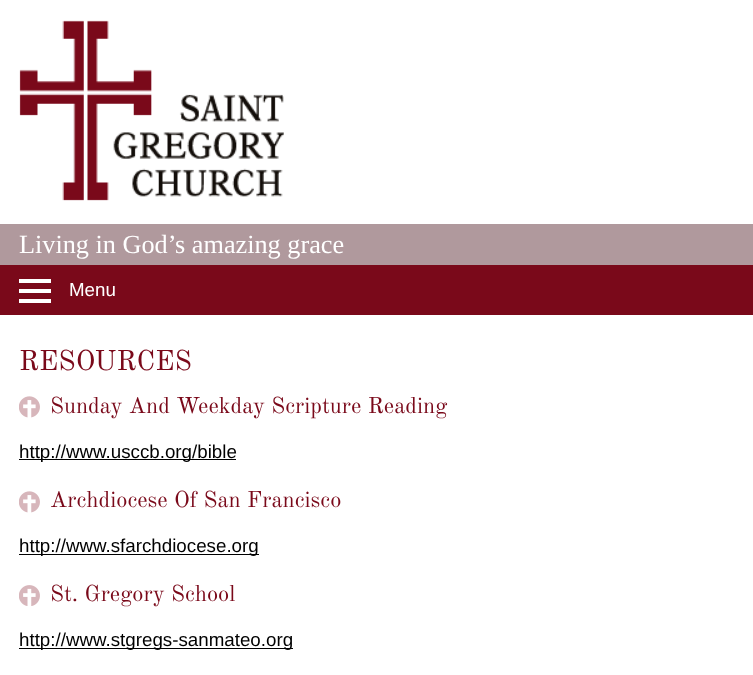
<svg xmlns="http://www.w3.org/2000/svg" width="753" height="675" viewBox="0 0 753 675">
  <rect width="100%" height="100%" fill="#fff"/>
  <image x="19" y="20" width="265" height="181" href="img/1.png"/>
  <path d="M0 224h753v41H0z" fill="#b0999d"/>
  <path d="M0 265h753v50H0z" fill="#7a091a"/>
  <path d="M19 289h32v4H19z" fill="#fff"/>
  <path d="M19 279h32v4H19z" fill="#fff"/>
  <path d="M19 299h32v4H19z" fill="#fff"/>
  <image x="19" y="396" width="21" height="22" href="img/2.png"/>
  <path d="M19 459h217v1H19z" fill="#000"/>
  <image x="19" y="491" width="21" height="22" href="img/2.png"/>
  <path d="M19 554h240v1H19z" fill="#000"/>
  <image x="19" y="585" width="21" height="21" href="img/3.png"/>
  <path d="M19 648h274v1H19z" fill="#000"/>
  <text x="19" y="253" font-family="Liberation Serif" font-size="26.25" fill="#fff">Living in God’s amazing grace</text>
  <text x="69" y="296" font-family="Liberation Sans" font-size="18.75" fill="#fff">Menu</text>
  <text x="19" y="370" font-family="Old Standard TT" font-size="28" fill="#7a091a">RESOURCES</text>
  <text x="50" y="413" font-family="Old Standard TT" font-size="22.5" fill="#7a091a">Sunday And Weekday Scripture Reading</text>
  <text x="19" y="458" font-family="Liberation Sans" font-size="18.75" fill="#000">http://www.usccb.org/bible</text>
  <text x="50" y="507" font-family="Old Standard TT" font-size="22.5" fill="#7a091a">Archdiocese Of San Francisco</text>
  <text x="19" y="552" font-family="Liberation Sans" font-size="18.75" fill="#000">http://www.sfarchdiocese.org</text>
  <text x="50" y="601" font-family="Old Standard TT" font-size="22.5" fill="#7a091a">St. Gregory School</text>
  <text x="19" y="646" font-family="Liberation Sans" font-size="18.75" fill="#000">http://www.stgregs-sanmateo.org</text>
</svg>
